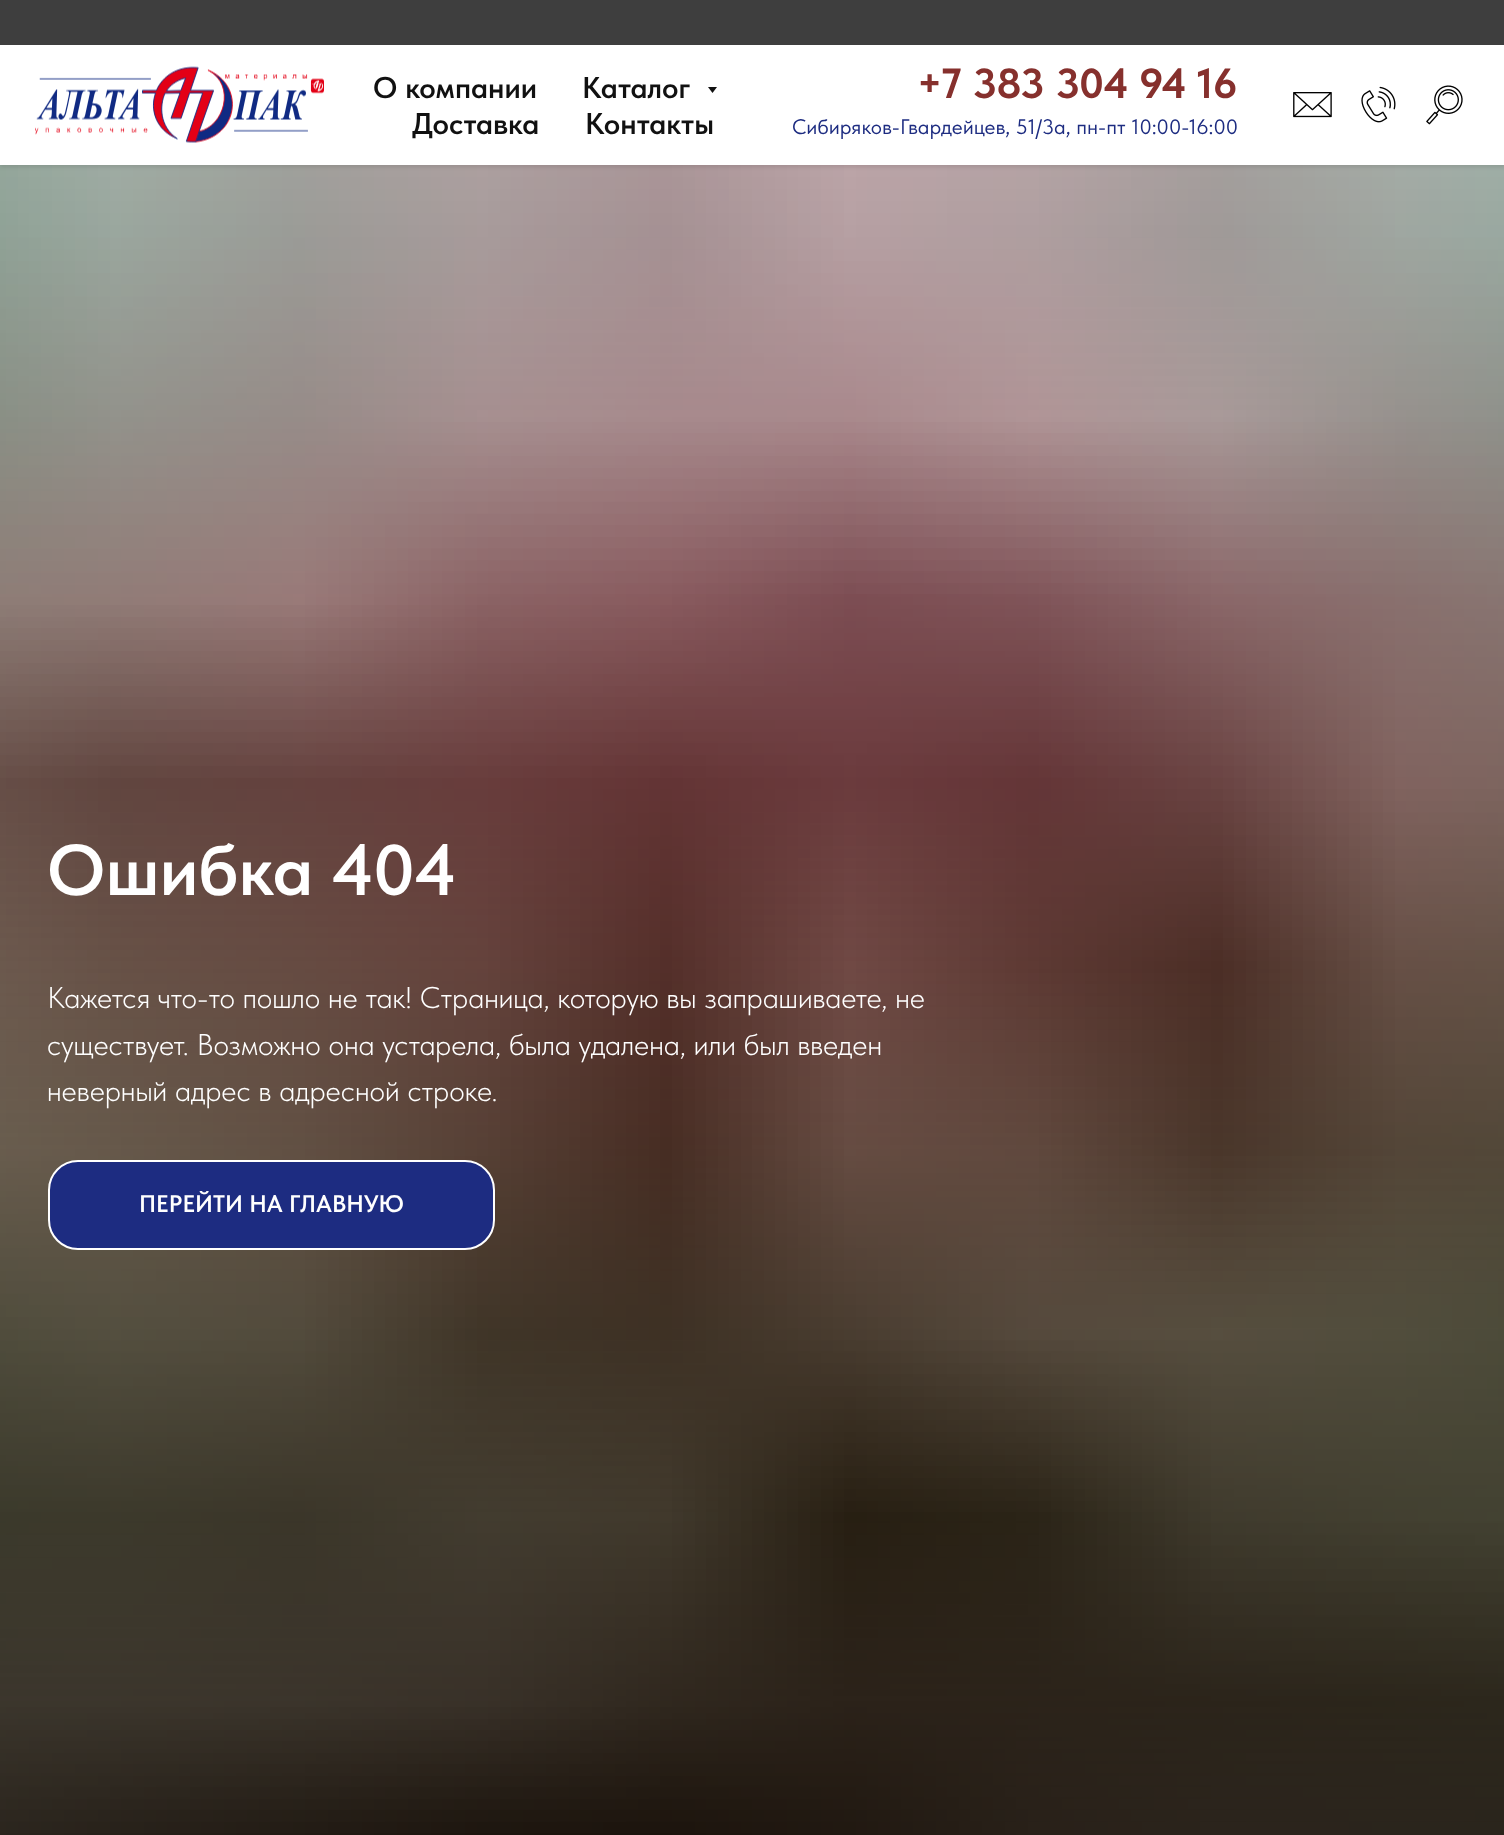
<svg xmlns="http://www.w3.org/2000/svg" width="1504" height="1835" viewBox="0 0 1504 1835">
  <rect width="100%" height="100%" fill="#fff"/>
  <image x="0" y="165" width="1504" height="1670" href="img/5.png"/>
  <path d="M0 47h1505v120H0z" fill="#0000001a" filter="blur(2px)"/>
  <path d="M0 0h1504v45H0z" fill="#3e3e3e"/>
  <path d="M0 45h1504v120H0z" fill="#fff"/>
  <image x="35" y="66" width="289" height="77" href="img/1.png"/>
  <path d="M708 87H717L712.5 93Z" fill="#111"/>
  <image x="1293" y="92" width="39" height="26" href="img/2.png"/>
  <image x="1361" y="86" width="35" height="37" href="img/3.png"/>
  <image x="1426" y="85" width="37" height="40" href="img/4.png"/>
  <rect x="49" y="1161" width="445" height="88" rx="29" fill="#1d2c81" stroke="#fff" stroke-width="2"/>
  <g font-family="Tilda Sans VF" font-size="30" font-weight="600" fill="#111">
    <text x="373" y="98">О компании</text>
    <text x="582" y="98">Каталог</text>
    <text x="412" y="134">Доставка</text>
    <text x="585" y="134">Контакты</text>
  </g>
  <text x="917" y="98" font-family="Tilda Sans VF" font-size="42" font-weight="bold" fill="#86302d">+7 383 304 94 16</text>
  <text x="792" y="134" font-family="Tilda Sans VF" font-size="21" fill="#1d2c81">Сибиряков-Гвардейцев, 51/3а, пн-пт 10:00-16:00</text>
  <text x="47" y="895" font-family="Tilda Sans VF" font-size="72" font-weight="600" fill="#fff">Ошибка 404</text>
  <g font-family="Tilda Sans VF" font-size="30" font-weight="300" fill="#fff">
    <text x="47" y="1008">Кажется что-то пошло не так! Страница, которую вы запрашиваете, не</text>
    <text x="47" y="1055">существует. Возможно она устарела, была удалена, или был введен</text>
    <text x="47" y="1101">неверный адрес в адресной строке.</text>
  </g>
  <text x="139" y="1212" font-family="Tilda Sans VF" font-size="24" font-weight="600" fill="#fff">ПЕРЕЙТИ НА ГЛАВНУЮ</text>
</svg>
